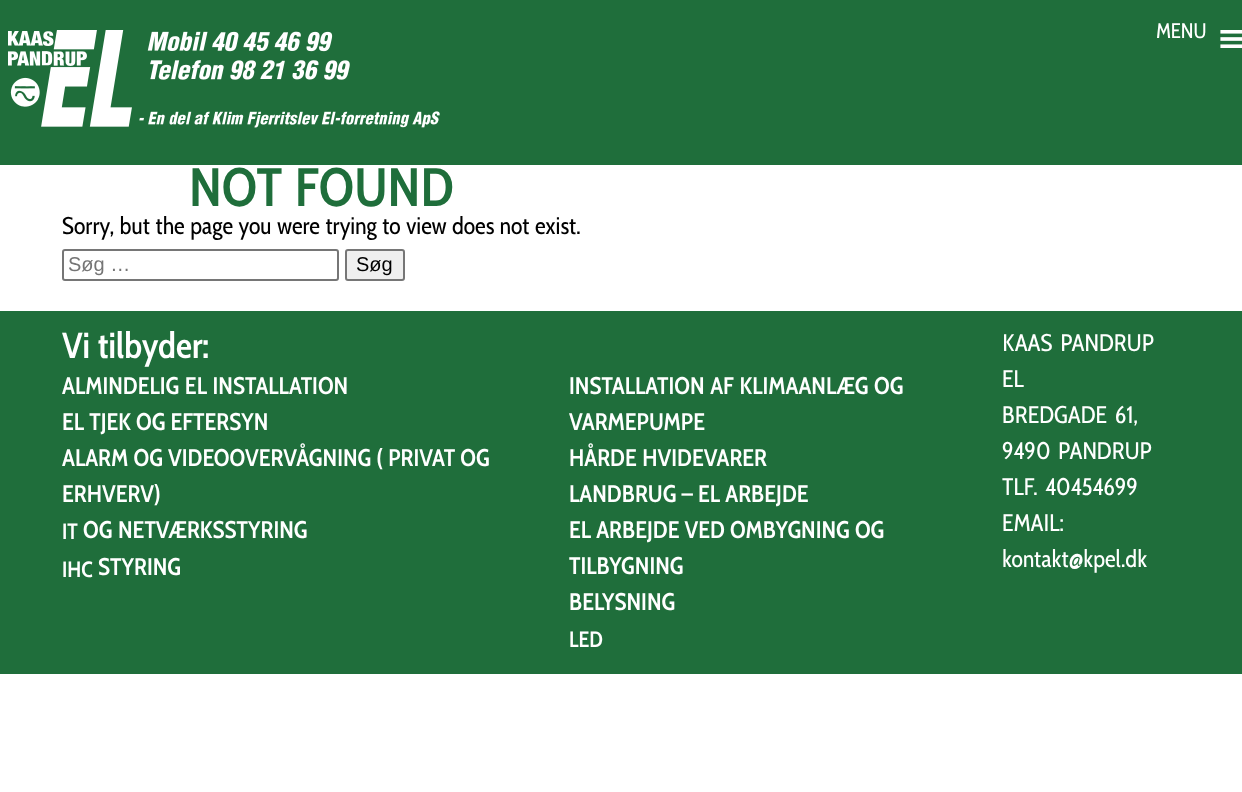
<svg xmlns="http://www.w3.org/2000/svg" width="1242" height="792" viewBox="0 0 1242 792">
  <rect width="100%" height="100%" fill="#fff"/>
  <path d="M0 0h1242v165H0z" fill="#1f6e3b"/>
  <image x="8" y="30" width="432" height="98" href="img/1.png"/>
  <image x="1220" y="30" width="22" height="18" href="img/2.png"/>
  <rect x="63" y="250" width="275" height="30" rx="2" fill="none" stroke="#767676" stroke-width="2"/>
  <rect x="346" y="250" width="58" height="30" rx="2" fill="#efefef" stroke="#767676" stroke-width="2"/>
  <path d="M0 311h1242v363H0z" fill="#1f6e3b"/>
  <text x="1156" y="38" font-family="Cabin Condensed" font-size="21" fill="#fff">MENU</text>
  <text x="189" y="206" word-spacing="2" font-family="Cabin Condensed" font-size="54" font-weight="600" fill="#1f6e3b">NOT FOUND</text>
  <text x="62" y="234" word-spacing="0.9" font-family="Cabin Condensed" font-size="24" fill="#000">Sorry, but the page you were trying to view does not exist.</text>
  <text x="68" y="271" font-family="Liberation Sans" font-size="20" fill="#757575">Søg …</text>
  <text x="356" y="271" font-family="Liberation Sans" font-size="20" fill="#000">Søg</text>
  <text x="62" y="358" word-spacing="1" font-family="Cabin Condensed" font-size="36" font-weight="600" fill="#fff">Vi tilbyder:</text>
  <g font-family="Cabin Condensed" font-size="24" font-weight="600" fill="#fff">
    <text x="62" y="394" word-spacing="1">ALMINDELIG EL INSTALLATION</text>
    <text x="569" y="394" word-spacing="1">INSTALLATION AF KLIMAANLÆG OG</text>
    <text x="569" y="430">VARMEPUMPE</text>
    <text x="62" y="430" word-spacing="0.5">EL TJEK OG EFTERSYN</text>
    <text x="62" y="466" word-spacing="0.5">ALARM OG VIDEOOVERVÅGNING ( PRIVAT OG</text>
    <text x="62" y="502">ERHVERV)</text>
    <text x="569" y="466" word-spacing="1">HÅRDE HVIDEVARER</text>
    <text x="569" y="502" word-spacing="0.5">LANDBRUG – EL ARBEJDE</text>
  </g>
  <text x="62" y="539" font-family="Cabin Condensed" font-size="22" font-weight="600" fill="#fff">IT</text>
  <g font-family="Cabin Condensed" font-size="24" font-weight="600" fill="#fff">
    <text x="83" y="538" word-spacing="1">OG NETVÆRKSSTYRING</text>
    <text x="569" y="538" word-spacing="0.5">EL ARBEJDE VED OMBYGNING OG</text>
    <text x="569" y="574">TILBYGNING</text>
  </g>
  <text x="62" y="577" font-family="Cabin Condensed" font-size="22" font-weight="600" fill="#fff">IHC</text>
  <g font-family="Cabin Condensed" font-size="24" font-weight="600" fill="#fff">
    <text x="98" y="575">STYRING</text>
    <text x="569" y="610">BELYSNING</text>
  </g>
  <text x="569" y="647" font-family="Cabin Condensed" font-size="22" font-weight="600" fill="#fff">LED</text>
  <g font-family="Cabin Condensed" font-size="24" fill="#fff">
    <text x="1002" y="351" word-spacing="3">KAAS PANDRUP</text>
    <text x="1002" y="387">EL</text>
    <text x="1002" y="423" word-spacing="3">BREDGADE 61,</text>
    <text x="1002" y="459" word-spacing="3">9490 PANDRUP</text>
    <text x="1002" y="495" word-spacing="3">TLF. 40454699</text>
    <text x="1002" y="531">EMAIL:</text>
    <text x="1002" y="567">kontakt@kpel.dk</text>
  </g>
</svg>
